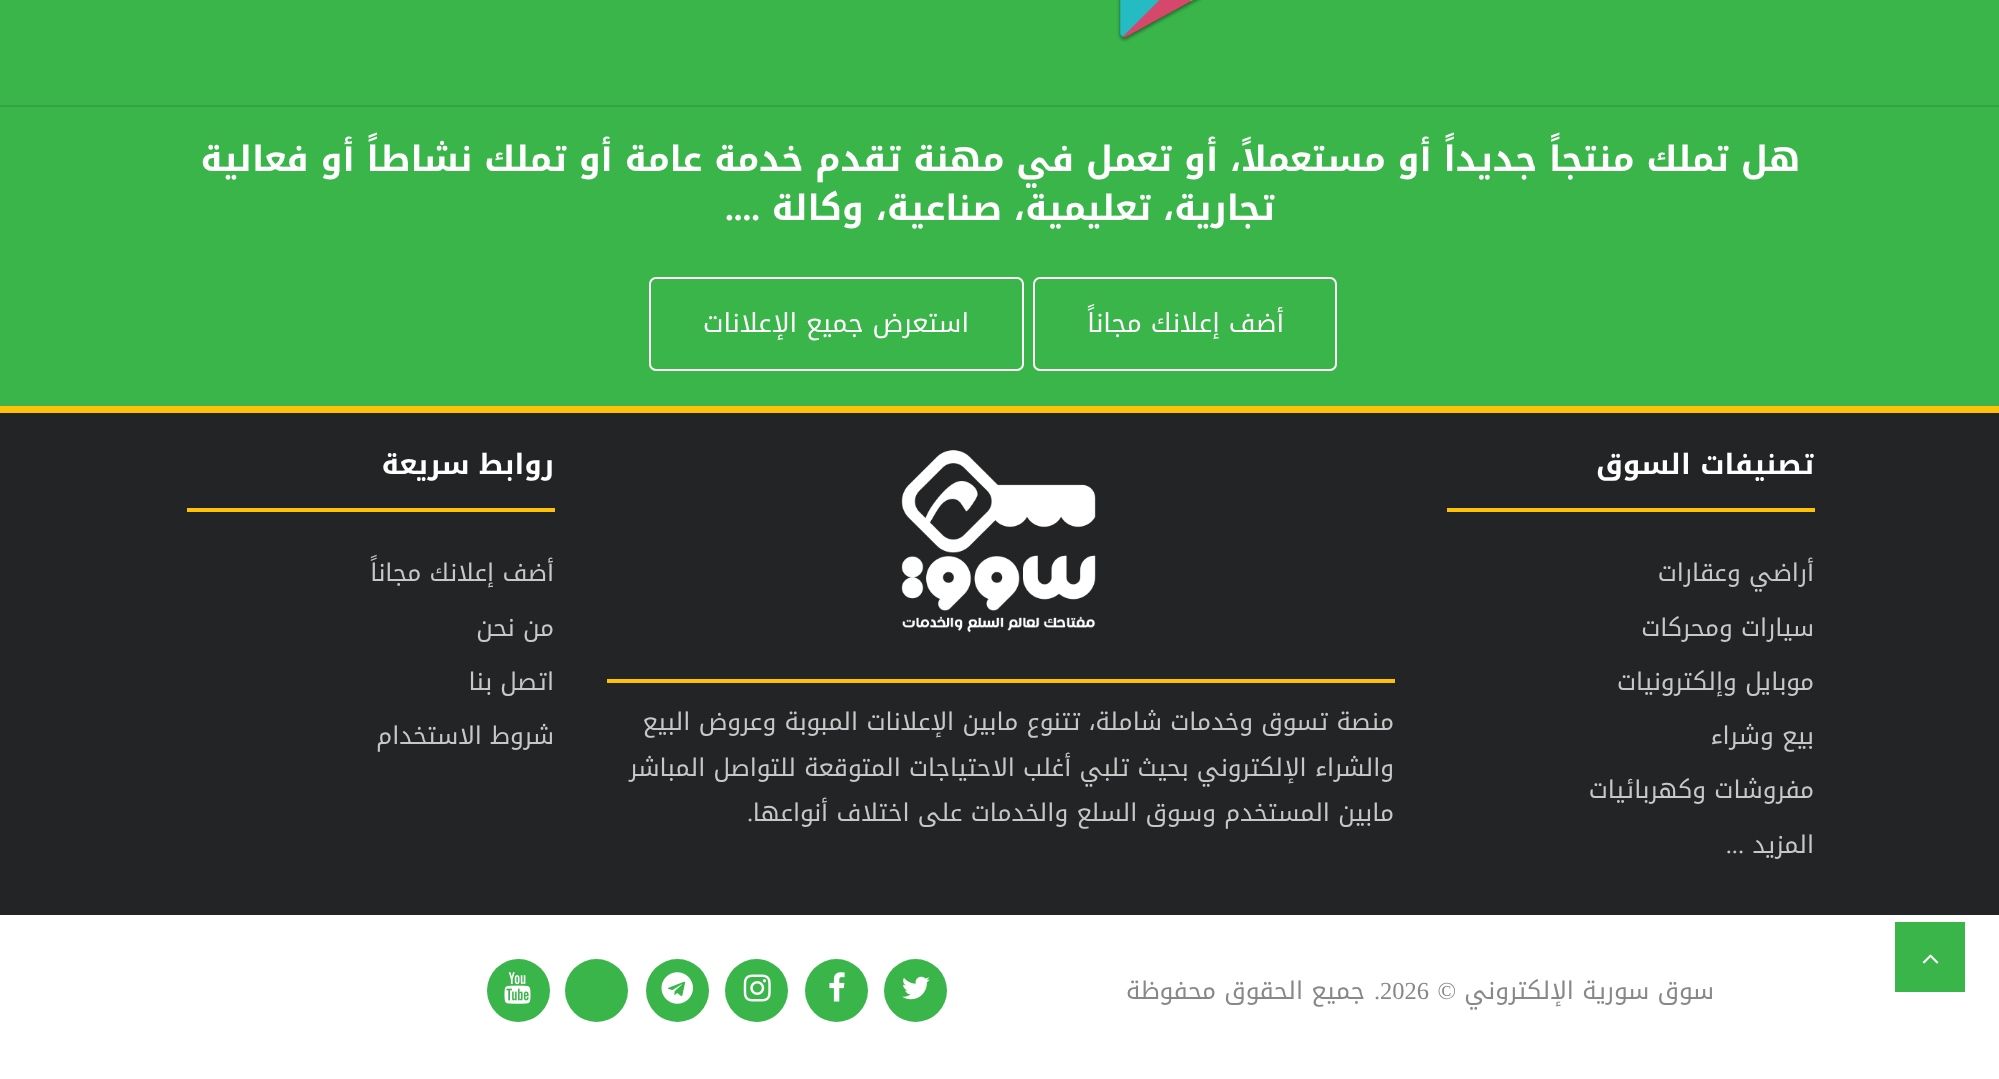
<svg xmlns="http://www.w3.org/2000/svg" width="1999" height="1079" viewBox="0 0 1999 1079">
  <rect width="100%" height="100%" fill="#fff"/>
  <path d="M0 0h1999v406H0z" fill="#39b54a"/>
  <image x="1117" y="0" width="85" height="42" href="img/1.png"/>
  <path d="M0 105h1999v2H0z" fill="#33a343"/>
  <rect x="1034" y="278" width="302" height="92" rx="6" fill="none" stroke="#fff" stroke-width="2"/>
  <rect x="650" y="278" width="373" height="92" rx="6" fill="none" stroke="#fff" stroke-width="2"/>
  <path d="M0 413h1999v502H0z" fill="#232425"/>
  <path d="M0 406h1999v7H0z" fill="#ffc107"/>
  <path d="M1447 508h368v4H1447z" fill="#ffc107"/>
  <path d="M607 679h788v4H607z" fill="#ffc107"/>
  <image x="901" y="450" width="195" height="183" href="img/2.png"/>
  <path d="M187 508h368v4H187z" fill="#ffc107"/>
  <path d="M1895 922h70v70H1895z" fill="#39b54a"/>
  <image x="1922" y="954" width="17" height="10" href="img/3.png"/>
  <circle cx="915.5" cy="990.5" r="31.5" fill="#39b54a"/>
  <image x="902" y="976" width="28" height="24" href="img/4.png"/>
  <circle cx="836.5" cy="990.5" r="31.5" fill="#39b54a"/>
  <image x="829" y="972" width="16" height="30" href="img/5.png"/>
  <circle cx="756.5" cy="990.5" r="31.5" fill="#39b54a"/>
  <image x="743" y="974" width="28" height="28" href="img/6.png"/>
  <circle cx="677.5" cy="990.5" r="31.5" fill="#39b54a"/>
  <image x="661" y="972" width="32" height="32" href="img/7.png"/>
  <circle cx="596.5" cy="990.5" r="31.5" fill="#39b54a"/>
  <circle cx="518.5" cy="990.5" r="31.5" fill="#39b54a"/>
  <image x="504" y="972" width="27" height="32" href="img/8.png"/>
  <g font-family="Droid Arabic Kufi" font-size="35" font-weight="bold" direction="rtl" fill="#fff">
    <text x="1800" y="171">هل تملك منتجاً جديداً أو مستعملاً، أو تعمل في مهنة تقدم خدمة عامة أو تملك نشاطاً أو فعالية</text>
    <text x="1275" y="220">تجارية، تعليمية، صناعية، وكالة</text>
  </g>
  <text x="760" y="220" font-family="Liberation Serif" font-size="35" font-weight="bold" direction="rtl" fill="#fff">....</text>
  <g font-family="Droid Arabic Kufi" font-size="26.25" direction="rtl" fill="#fff">
    <text x="1284" y="332">أضف إعلانك مجاناً</text>
    <text x="969" y="332">استعرض جميع الإعلانات</text>
  </g>
  <text x="1814" y="474" font-family="Droid Arabic Kufi" font-size="28" font-weight="bold" direction="rtl" fill="#fff">تصنيفات السوق</text>
  <g font-family="Droid Arabic Kufi" font-size="24.5" direction="rtl" fill="#c7c7c7">
    <text x="1814" y="581">أراضي وعقارات</text>
    <text x="1814" y="636">سيارات ومحركات</text>
    <text x="1814" y="690">موبايل وإلكترونيات</text>
    <text x="1814" y="744">بيع وشراء</text>
    <text x="1814" y="798">مفروشات وكهربائيات</text>
    <text x="1814" y="853">المزيد</text>
  </g>
  <text x="1744" y="853" font-family="Liberation Serif" font-size="24.5" direction="rtl" fill="#c7c7c7">...</text>
  <g font-family="Droid Arabic Kufi" font-size="24.5" direction="rtl" fill="#c7c7c7">
    <text x="1394" y="730">منصة تسوق وخدمات شاملة، تتنوع مابين الإعلانات المبوبة وعروض البيع</text>
    <text x="1394" y="776">والشراء الإلكتروني بحيث تلبي أغلب الاحتياجات المتوقعة للتواصل المباشر</text>
    <text x="1394" y="821">مابين المستخدم وسوق السلع والخدمات على اختلاف أنواعها</text>
  </g>
  <text x="753" y="821" font-family="Liberation Serif" font-size="24.5" direction="rtl" fill="#c7c7c7">.</text>
  <text x="554" y="474" font-family="Droid Arabic Kufi" font-size="28" font-weight="bold" direction="rtl" fill="#fff">روابط سريعة</text>
  <g font-family="Droid Arabic Kufi" font-size="24.5" direction="rtl" fill="#c7c7c7">
    <text x="554" y="581">أضف إعلانك مجاناً</text>
    <text x="554" y="636">من نحن</text>
    <text x="554" y="690">اتصل بنا</text>
    <text x="554" y="744">شروط الاستخدام</text>
  </g>
  <text x="1714" y="999" font-family="Droid Arabic Kufi" font-size="24.5" direction="rtl" fill="#888">سوق سورية الإلكتروني</text>
  <text x="1456" y="999" font-family="Liberation Serif" font-size="24.5" direction="rtl" fill="#888">©</text>
  <text x="1380" y="999" font-family="Liberation Serif" font-size="24.5" fill="#888">2026</text>
  <text x="1380" y="999" font-family="Liberation Serif" font-size="24.5" direction="rtl" fill="#888">.</text>
  <text x="1365" y="999" font-family="Droid Arabic Kufi" font-size="24.5" direction="rtl" fill="#888">جميع الحقوق محفوظة</text>
</svg>
